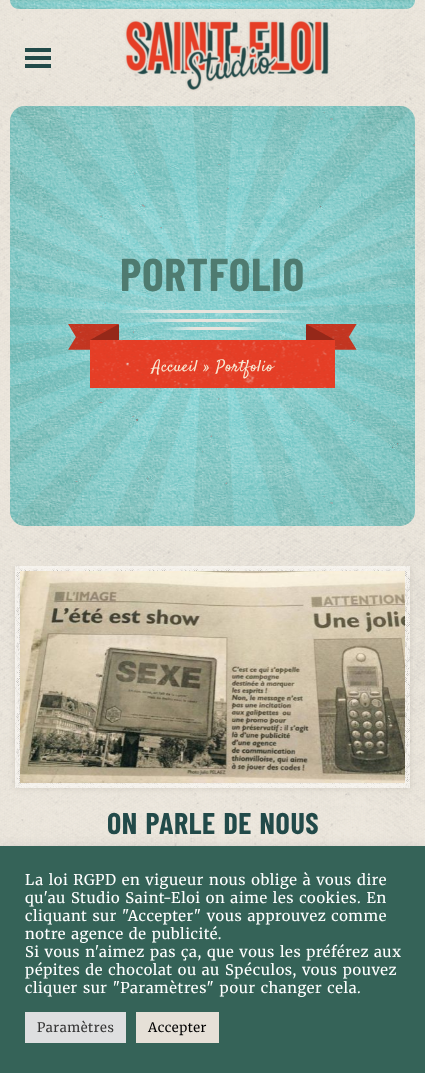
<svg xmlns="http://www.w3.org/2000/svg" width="425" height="1073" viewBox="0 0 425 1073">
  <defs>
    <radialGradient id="g1" gradientUnits="userSpaceOnUse" cx="0" cy="0" r="1" gradientTransform="matrix(286 0 0 6.4 213 4.5)"><stop offset="0" stop-color="#81d8db"/><stop offset="1" stop-color="#6eb8b3"/></radialGradient>
    <radialGradient id="g2" gradientUnits="userSpaceOnUse" cx="0" cy="0" r="1" gradientTransform="matrix(286 0 0 297 213 316)"><stop offset="0" stop-color="#81d8db"/><stop offset="1" stop-color="#6eb8b3"/></radialGradient>
    <linearGradient id="g3" gradientUnits="userSpaceOnUse" x1="313" y1="312" x2="113" y2="312"><stop offset="0" stop-color="#fff" stop-opacity="0.01"/><stop offset="0.33" stop-color="#e9e4dd"/><stop offset="0.67" stop-color="#e9e4dd"/><stop offset="1" stop-color="#fff" stop-opacity="0.01"/></linearGradient>
    <linearGradient id="g4" gradientUnits="userSpaceOnUse" x1="293" y1="320" x2="133" y2="320"><stop offset="0" stop-color="#fff" stop-opacity="0.01"/><stop offset="0.33" stop-color="#e9e4dd"/><stop offset="0.67" stop-color="#e9e4dd"/><stop offset="1" stop-color="#fff" stop-opacity="0.01"/></linearGradient>
    <linearGradient id="g5" gradientUnits="userSpaceOnUse" x1="263" y1="329" x2="163" y2="329"><stop offset="0" stop-color="#fff" stop-opacity="0.01"/><stop offset="0.33" stop-color="#e9e4dd"/><stop offset="0.67" stop-color="#e9e4dd"/><stop offset="1" stop-color="#fff" stop-opacity="0.01"/></linearGradient>
    <clipPath id="clip1"><path d="M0 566h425v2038H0z"/></clipPath>
  </defs>
  <rect width="100%" height="100%" fill="#f7f2e8"/>
  <image x="0" y="0" width="425" height="846" href="img/1.png"/>
  <path d="M10 0H415C415 5 411 9 406 9H19C14 9 10 5 10 0Z" fill="url(#g1)"/>
  <image x="10" y="0" width="405" height="9" href="img/2.png"/>
  <path d="M25 48h26v4H25z" fill="#224a49"/>
  <path d="M25 56h26v4H25z" fill="#224a49"/>
  <path d="M25 64h26v4H25z" fill="#224a49"/>
  <image x="124" y="19" width="205" height="73" href="img/3.png"/>
  <rect x="10" y="106" width="405" height="420" rx="15" fill="url(#g2)"/>
  <image x="10" y="106" width="405" height="420" href="img/5.png"/>
  <image x="10" y="106" width="405" height="420" href="img/4.png"/>
  <path d="M113 310h200v3H113z" fill="url(#g3)"/>
  <path d="M133 319h160v3H133z" fill="url(#g4)"/>
  <path d="M163 327h100v3H163z" fill="url(#g5)"/>
  <image x="68" y="324" width="51" height="26" href="img/6.png"/>
  <image x="306" y="324" width="51" height="26" href="img/7.png"/>
  <path d="M90 340h245v48H90z" fill="#e53e26"/>
  <image x="90" y="340" width="245" height="48" href="img/8.png"/>
  <path d="M119 340H90L119 324Z" fill="#952819"/>
  <path d="M335 340H306V324Z" fill="#952819"/>
  <g clip-path="url(#clip1)">
    <path d="M15 566h395v222H15z" fill="#281e1a1f" filter="blur(3px)"/>
  </g>
  <image x="20" y="571" width="385" height="212" href="img/10.png"/>
  <image x="15" y="566" width="395" height="222" href="img/9.png"/>
  <path d="M0 845h425v227H0z" fill="#acabab4d" filter="blur(5px)"/>
  <path d="M0 846h425v227H0z" fill="#356358"/>
  <path d="M25 1012h101v31H25z" fill="#dedfe0"/>
  <path d="M136 1012h83v31H136z" fill="#e6e0d7"/>
  <text x="120" y="291" font-family="Barlow Condensed" font-size="46" font-weight="bold" letter-spacing="0.6" fill="#4f7b70">PORTFOLIO</text>
  <g font-family="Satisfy" font-size="16" letter-spacing="0.6" fill="#f7ebd5">
    <text x="152" y="371">Accueil</text>
    <text x="204" y="371">»</text>
    <text x="216" y="371">Portfolio</text>
  </g>
  <text x="107" y="834" word-spacing="1" font-family="Barlow Condensed" font-size="30" font-weight="bold" letter-spacing="0.6" fill="#224a49">ON PARLE DE NOUS</text>
  <g font-family="Merriweather" font-size="14.7" letter-spacing="0.6" fill="#fff">
    <text x="25" y="885" word-spacing="1">La loi RGPD en vigueur nous oblige à vous dire</text>
    <text x="25" y="903" word-spacing="1">qu'au Studio Saint-Eloi on aime les cookies. En</text>
    <text x="25" y="921" word-spacing="1">cliquant sur "Accepter" vous approuvez comme</text>
    <text x="25" y="939" word-spacing="1">notre agence de publicité.</text>
    <text x="25" y="957" word-spacing="1">Si vous n'aimez pas ça, que vous les préférez aux</text>
    <text x="25" y="975" word-spacing="1">pépites de chocolat ou au Spéculos, vous pouvez</text>
    <text x="25" y="993" word-spacing="1">cliquer sur "Paramètres" pour changer cela.</text>
  </g>
  <text x="37" y="1032" font-family="Merriweather" font-size="13" letter-spacing="0.6" fill="#333">Paramètres</text>
  <text x="148" y="1032" font-family="Merriweather" font-size="13" letter-spacing="0.6" fill="#000">Accepter</text>
</svg>
